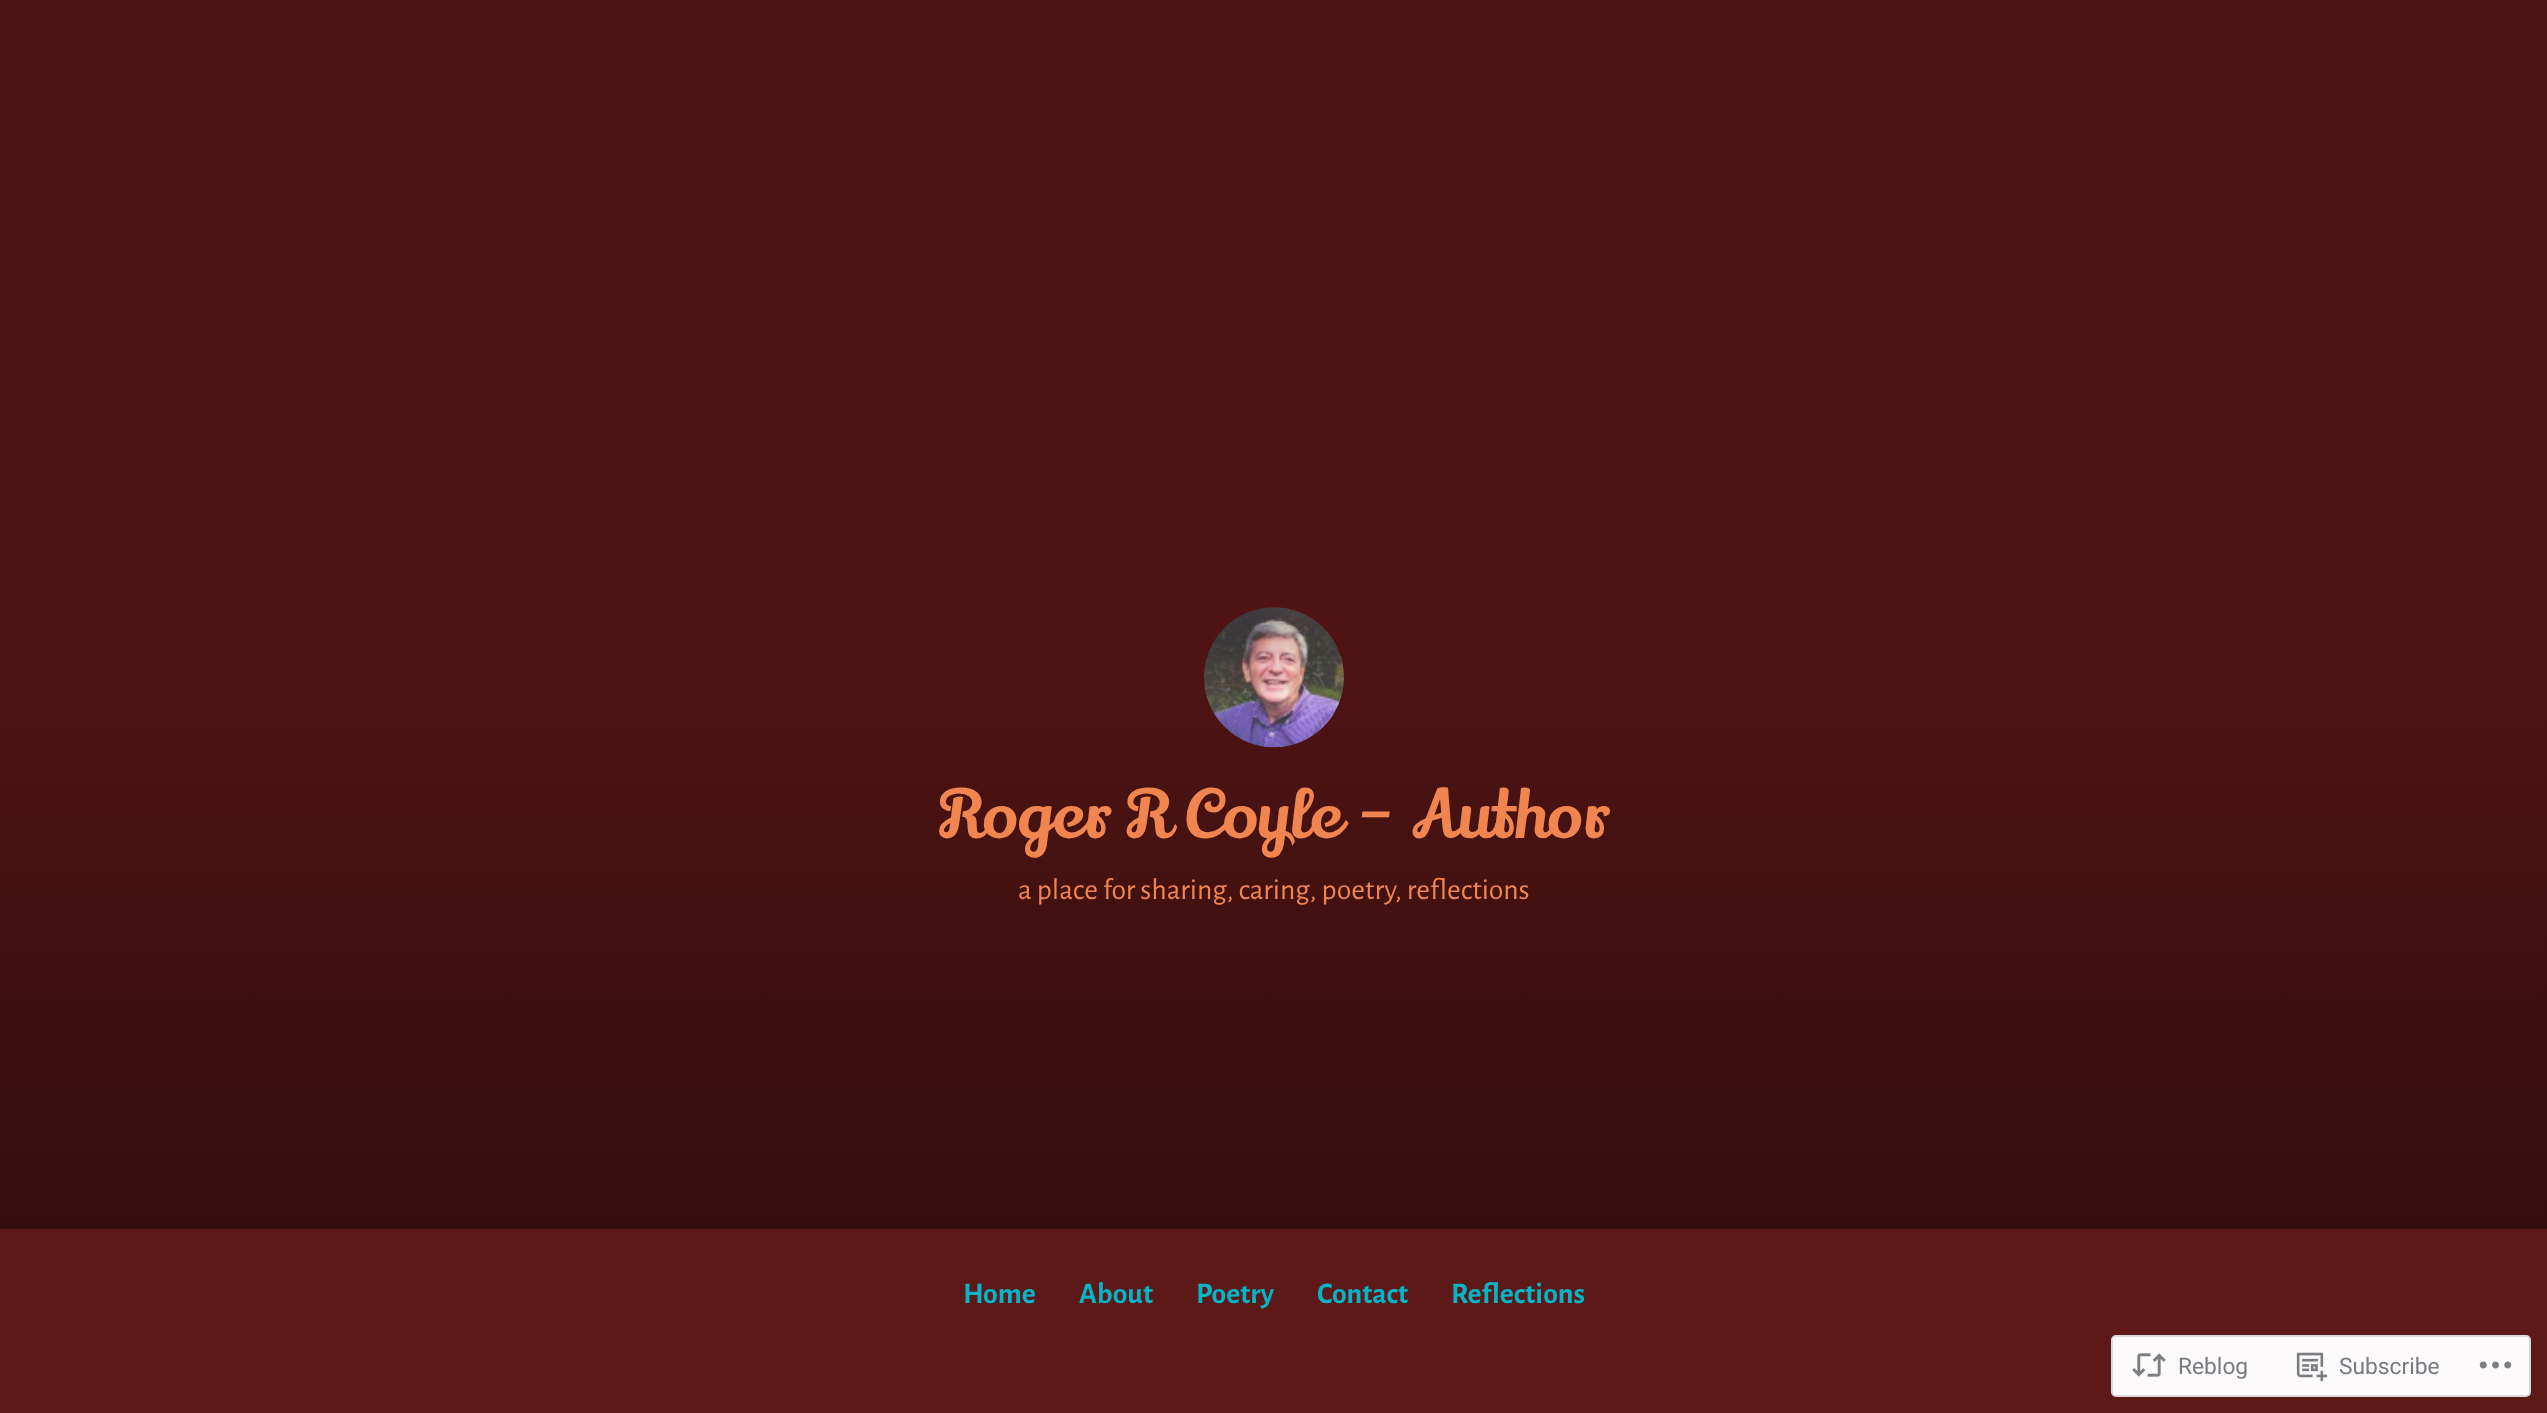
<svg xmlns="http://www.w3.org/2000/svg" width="2547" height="1413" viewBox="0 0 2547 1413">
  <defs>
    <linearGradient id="g1" gradientUnits="userSpaceOnUse" x1="1274" y1="0" x2="1274" y2="1229"><stop offset="0.5" stop-color="#511414"/><stop offset="1" stop-color="#340d0d"/></linearGradient>
  </defs>
  <rect width="100%" height="100%" fill="#5d1818"/>
  <path d="M0 0h2547v1229H0z" fill="url(#g1)"/>
  <image x="1204" y="607" width="140" height="141" href="img/1.png"/>
  <rect x="2112" y="1336" width="418" height="60" rx="4" fill="#fcfafa" stroke="#d9d8da" stroke-width="2"/>
  <image x="2132" y="1353" width="34" height="24" href="img/2.png"/>
  <image x="2296" y="1352" width="32" height="30" href="img/3.png"/>
  <image x="2479" y="1361" width="33" height="8" href="img/4.png"/>
  <text x="938" y="838" font-family="Lily Script One" font-size="66.5" fill="#f08550">Roger R Coyle – Author</text>
  <text x="1018" y="899" font-family="Alegreya Sans" font-size="29.75" fill="#f08550">a place for sharing, caring, poetry, reflections</text>
  <g font-family="Alegreya Sans" font-size="29.75" font-weight="bold" fill="#04b4c7">
    <text x="963" y="1303">Home</text>
    <text x="1079" y="1303">About</text>
    <text x="1196" y="1303">Poetry</text>
    <text x="1317" y="1303">Contact</text>
    <text x="1451" y="1303">Reflections</text>
  </g>
  <g font-family="Roboto" font-size="22.75" fill="#777a80">
    <text x="2178" y="1374">Reblog</text>
    <text x="2339" y="1374">Subscribe</text>
  </g>
</svg>
